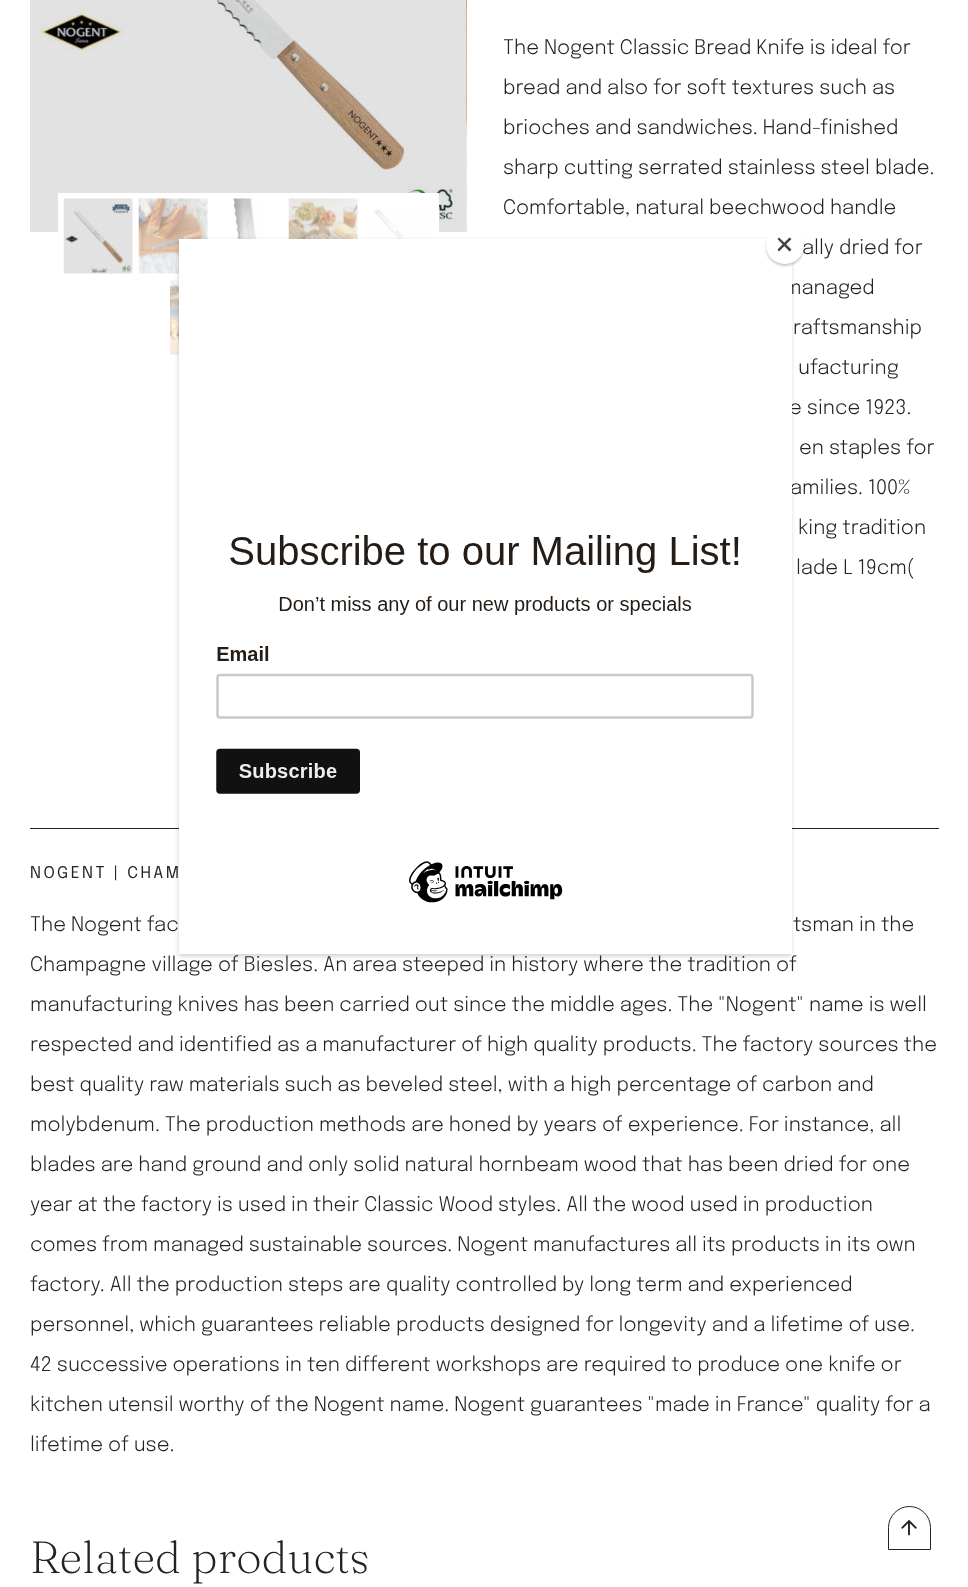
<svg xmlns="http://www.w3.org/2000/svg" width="968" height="1587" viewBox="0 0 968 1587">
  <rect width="100%" height="100%" fill="#fff"/>
  <image x="30" y="0" width="436" height="232" href="img/1.png"/>
  <image x="466" y="0" width="1" height="233" href="img/2.png"/>
  <path d="M58 193h381v39H58z" fill="#fff"/>
  <image x="63" y="198" width="70" height="76" href="img/3.png"/>
  <image x="138" y="198" width="70" height="76" href="img/4.png"/>
  <image x="233" y="198" width="28" height="41" href="img/5.png"/>
  <image x="288" y="198" width="70" height="41" href="img/6.png"/>
  <image x="373" y="209" width="55" height="30" href="img/7.png"/>
  <image x="170" y="279" width="9" height="76" href="img/8.png"/>
  <path d="M30 828h909v1H30z" fill="#232323"/>
  <path d="M179 241h612v715H179z" fill="#00000033" filter="blur(2.5px)"/>
  <path d="M909.5 1506.5C921 1506.5 930.5 1516 930.5 1527.5V1549.5H888.5V1527.5C888.5 1516 898 1506.5 909.5 1506.5Z" fill="none" stroke="#232323"/>
  <image x="901" y="1520" width="16" height="16" href="img/10.png"/>
  <g font-family="Epilogue" font-size="20" font-weight="300" fill="#232323">
    <text x="503" y="54">The Nogent Classic Bread Knife is ideal for</text>
    <text x="503" y="94">bread and also for soft textures such as</text>
    <text x="503" y="134">brioches and sandwiches. Hand-finished</text>
    <text x="503" y="174">sharp cutting serrated stainless steel blade.</text>
    <text x="503" y="214">Comfortable, natural beechwood handle</text>
    <text x="802" y="254">ally dried for</text>
    <text x="784" y="294">managed</text>
    <text x="793" y="334">raftsmanship</text>
    <text x="798" y="374">ufacturing</text>
    <text x="789" y="414">e since 1923.</text>
    <text x="799" y="454">en staples for</text>
    <text x="790" y="494">amilies. 100%</text>
    <text x="798" y="534">king tradition</text>
    <text x="796" y="574">lade L 19cm(</text>
  </g>
  <text x="30" y="878" font-family="Epilogue" font-size="16.25" letter-spacing="2.5" fill="#232323">NOGENT | CHAM</text>
  <g font-family="Epilogue" font-size="20" font-weight="300" fill="#232323">
    <text x="30" y="931">The Nogent fac</text>
    <text x="793" y="931">tsman in the</text>
    <text x="30" y="971">Champagne village of Biesles. An area steeped in history where the tradition of</text>
    <text x="30" y="1011">manufacturing knives has been carried out since the middle ages. The "Nogent" name is well</text>
    <text x="30" y="1051">respected and identified as a manufacturer of high quality products. The factory sources the</text>
    <text x="30" y="1091">best quality raw materials such as beveled steel, with a high percentage of carbon and</text>
    <text x="30" y="1131">molybdenum. The production methods are honed by years of experience. For instance, all</text>
    <text x="30" y="1171">blades are hand ground and only solid natural hornbeam wood that has been dried for one</text>
    <text x="30" y="1211">year at the factory is used in their Classic Wood styles. All the wood used in production</text>
    <text x="30" y="1251">comes from managed sustainable sources. Nogent manufactures all its products in its own</text>
    <text x="30" y="1291">factory. All the production steps are quality controlled by long term and experienced</text>
    <text x="30" y="1331">personnel, which guarantees reliable products designed for longevity and a lifetime of use.</text>
    <text x="30" y="1371">42 successive operations in ten different workshops are required to produce one knife or</text>
    <text x="30" y="1411">kitchen utensil worthy of the Nogent name. Nogent guarantees "made in France" quality for a</text>
    <text x="30" y="1451">lifetime of use.</text>
  </g>
  <text x="30" y="1573" font-family="Fraunces" font-size="45" font-weight="200" fill="#232323">Related products</text>
  <image x="179" y="239" width="613" height="715" href="img/9.png"/>
  <rect x="766" y="229" width="38" height="37" rx="18.5" fill="#00000033" filter="blur(1px)"/>
  <circle cx="785" cy="245" r="19" fill="#fff"/>
  <path d="M789.5 237.5L791.5 239L779 251.5L777.5 249.5Z" fill="#414141"/>
  <path d="M777.5 239L779 237.5L791.5 249.5L789.5 251.5Z" fill="#414141"/>
</svg>
